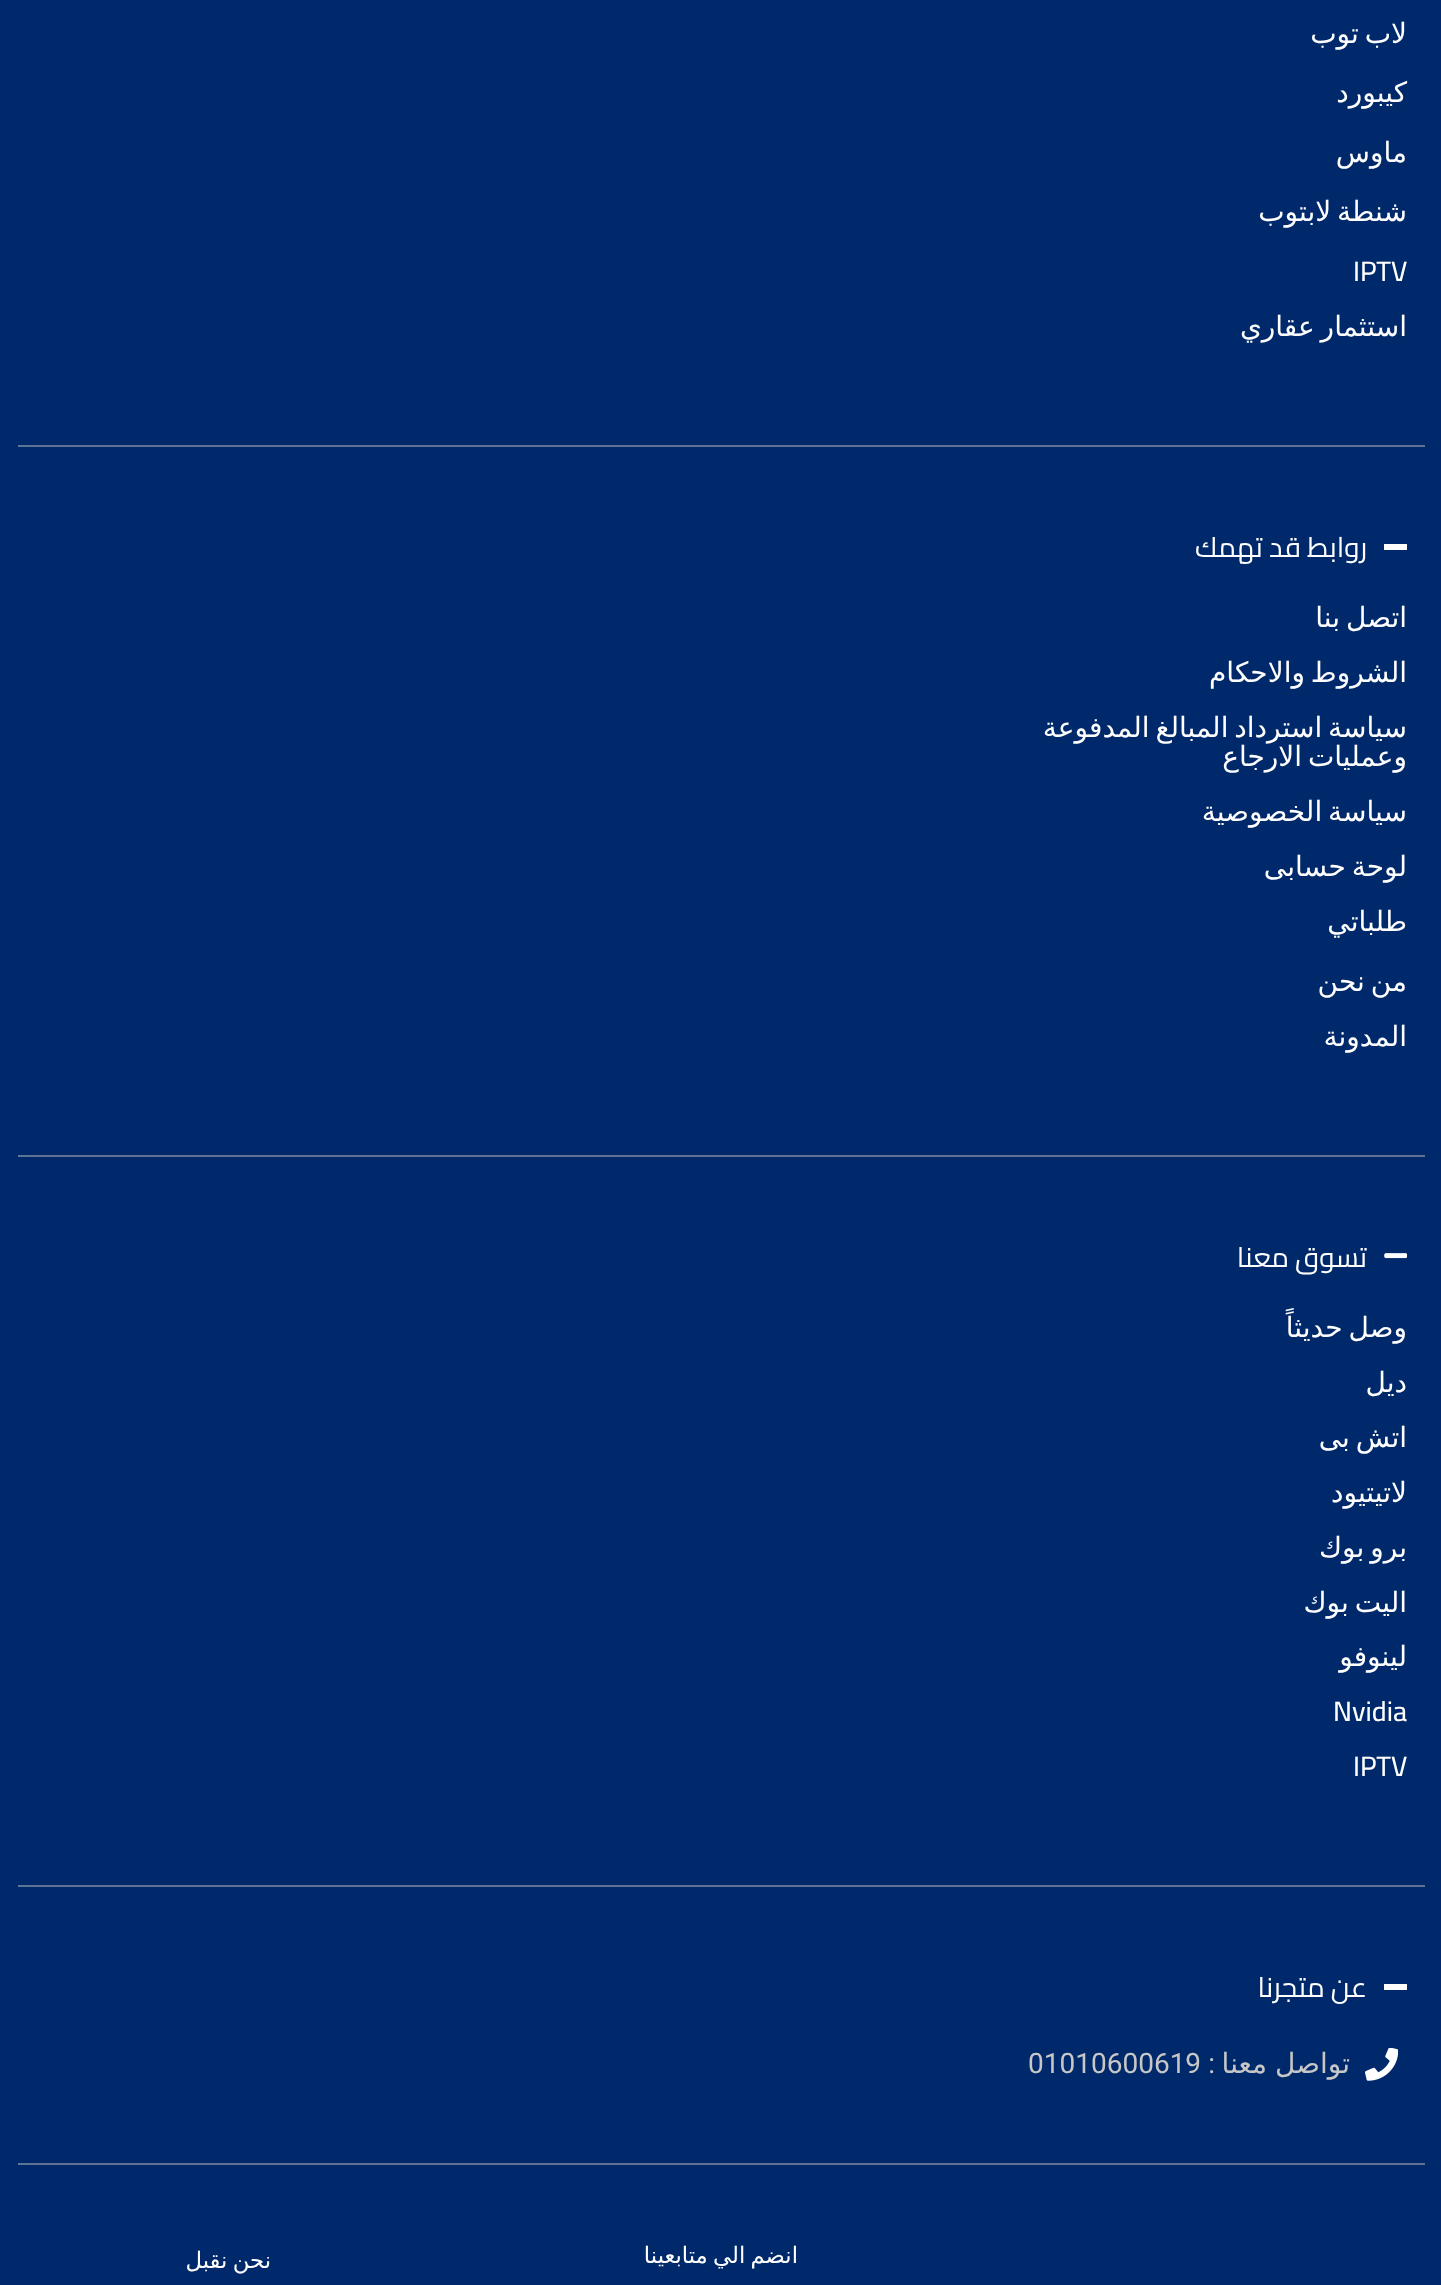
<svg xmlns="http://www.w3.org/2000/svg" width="1441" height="2285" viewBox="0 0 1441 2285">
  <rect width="100%" height="100%" fill="#00296b"/>
  <path d="M18 445h1407v2H18z" fill="#5f7394"/>
  <path d="M1384 544h23v6H1384z" fill="#fff"/>
  <path d="M18 1155h1407v2H18z" fill="#5f7394"/>
  <image x="1384" y="1253" width="23" height="6" href="img/1.png"/>
  <path d="M18 1885h1407v2H18z" fill="#5f7394"/>
  <path d="M1384 1984h23v6H1384z" fill="#fff"/>
  <image x="1365" y="2048" width="33" height="33" href="img/2.png"/>
  <path d="M18 2163h1407v2H18z" fill="#5f7394"/>
  <g font-family="DejaVu Sans" font-size="28" direction="rtl" fill="#fff">
    <text x="1407" y="43" word-spacing="-3">لاب توب</text>
    <text x="1407" y="102">كيبورد</text>
    <text x="1407" y="162">ماوس</text>
    <text x="1407" y="221" word-spacing="-3">شنطة لابتوب</text>
  </g>
  <text x="1353" y="281" font-family="Cairo" font-size="28" font-weight="500" fill="#fff">IPTV</text>
  <text x="1407" y="336" word-spacing="-3" font-family="DejaVu Sans" font-size="28" direction="rtl" fill="#fff">استثمار عقاري</text>
  <text x="1367" y="557" font-family="Cairo" font-size="28" direction="rtl" fill="#fff">روابط قد تهمك</text>
  <g font-family="DejaVu Sans" font-size="28" direction="rtl" fill="#fff">
    <text x="1407" y="627" word-spacing="-3">اتصل بنا</text>
    <text x="1407" y="682" word-spacing="-3">الشروط والاحكام</text>
    <text x="1407" y="737" word-spacing="-3">سياسة استرداد المبالغ المدفوعة</text>
    <text x="1407" y="766" word-spacing="-3">وعمليات الارجاع</text>
    <text x="1407" y="821" word-spacing="-3">سياسة الخصوصية</text>
    <text x="1407" y="876" word-spacing="-3">لوحة حسابى</text>
    <text x="1407" y="931">طلباتي</text>
    <text x="1407" y="991" word-spacing="-3">من نحن</text>
    <text x="1407" y="1046">المدونة</text>
  </g>
  <text x="1367" y="1267" font-family="Cairo" font-size="28" direction="rtl" fill="#fff">تسوق معنا</text>
  <g font-family="DejaVu Sans" font-size="28" direction="rtl" fill="#fff">
    <text x="1407" y="1337" word-spacing="-3">وصل حديثاً</text>
    <text x="1407" y="1392">ديل</text>
    <text x="1407" y="1447" word-spacing="-3">اتش بى</text>
    <text x="1407" y="1502">لاتيتيود</text>
    <text x="1407" y="1557" word-spacing="-3">برو بوك</text>
    <text x="1407" y="1612" word-spacing="-3">اليت بوك</text>
    <text x="1407" y="1666">لينوفو</text>
  </g>
  <g font-family="Cairo" font-size="28" font-weight="500" fill="#fff">
    <text x="1333" y="1721">Nvidia</text>
    <text x="1353" y="1776">IPTV</text>
  </g>
  <text x="1367" y="1997" font-family="Cairo" font-size="28" direction="rtl" fill="#fff">عن متجرنا</text>
  <text x="1350" y="2073" word-spacing="-1" font-family="DejaVu Sans" font-size="28" direction="rtl" fill="#c7c7c7">تواصل معنا</text>
  <text x="1215" y="2073" font-family="Roboto" font-size="28" direction="rtl" fill="#c7c7c7">:</text>
  <text x="1028" y="2073" font-family="Roboto" font-size="28" fill="#c7c7c7">01010600619</text>
  <g font-family="DejaVu Sans" font-size="22.75" direction="rtl" fill="#fff">
    <text x="798" y="2263" word-spacing="-2">انضم الي متابعينا</text>
    <text x="271" y="2268" word-spacing="-2">نحن نقبل</text>
  </g>
</svg>
